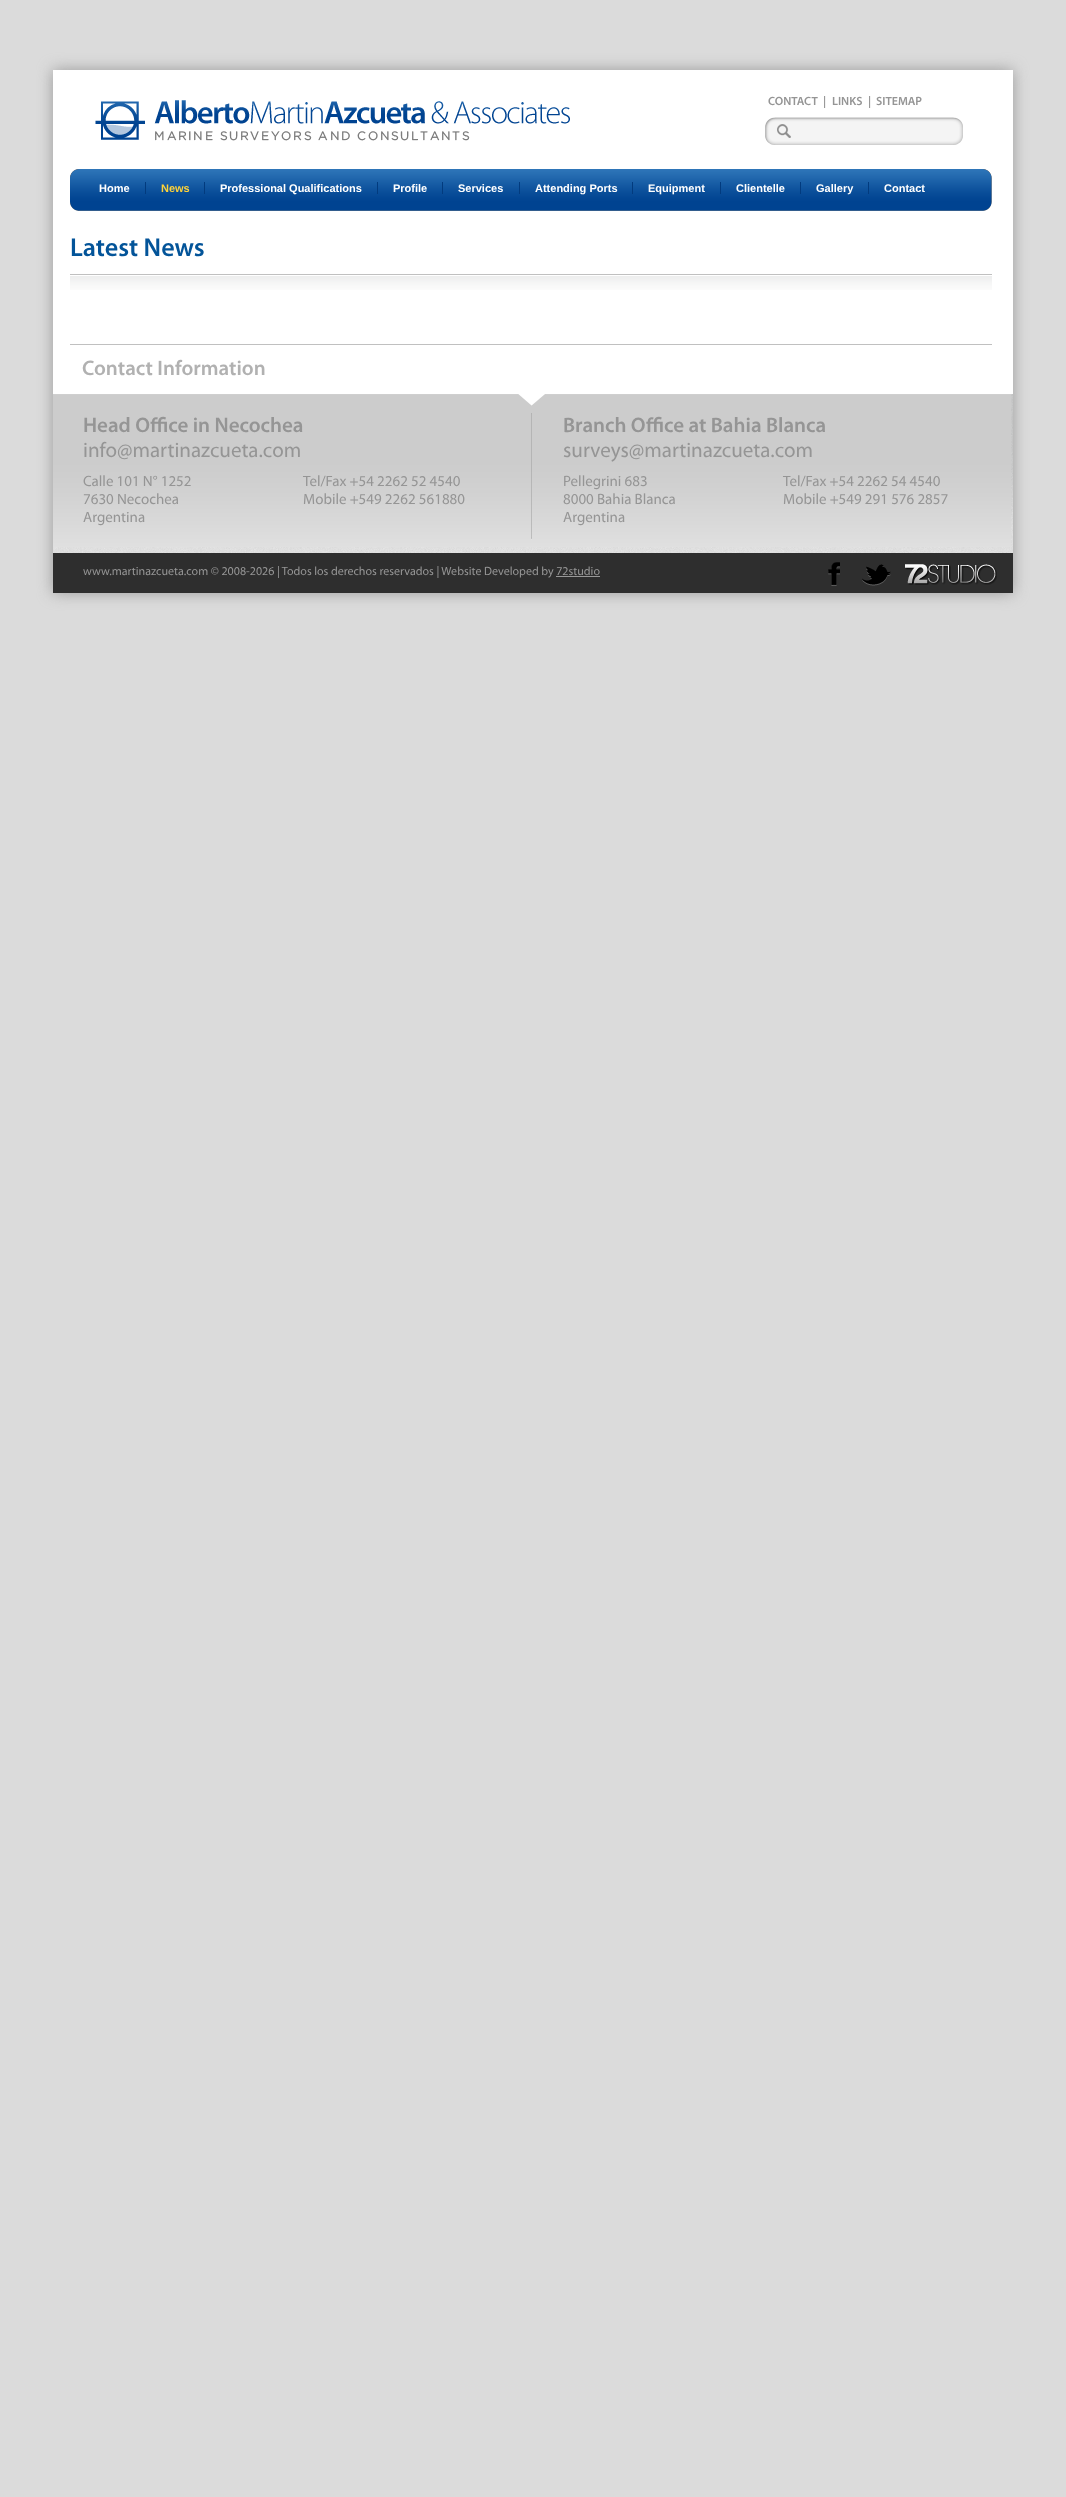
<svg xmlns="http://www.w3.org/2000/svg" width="1066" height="2497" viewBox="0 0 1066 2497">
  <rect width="100%" height="100%" fill="#dbdbdb"/>
  <path d="M53 70h960v523H53z" fill="#9a9a9a" filter="blur(7.5px)"/>
  <path d="M53 70h960v324H53z" fill="#fff"/>
  <image x="95" y="100" width="475" height="41" href="img/1.png"/>
  <image x="765" y="117" width="198" height="28" href="img/2.png"/>
  <image x="70" y="169" width="922" height="42" href="img/3.png"/>
  <path d="M145 182h1v12H145z" fill="#023b7e"/>
  <path d="M204 182h1v12H204z" fill="#023b7e"/>
  <path d="M377 182h1v12H377z" fill="#023b7e"/>
  <path d="M442 182h1v12H442z" fill="#023b7e"/>
  <path d="M519 182h1v12H519z" fill="#023b7e"/>
  <path d="M632 182h1v12H632z" fill="#023b7e"/>
  <path d="M720 182h1v12H720z" fill="#023b7e"/>
  <path d="M800 182h1v12H800z" fill="#023b7e"/>
  <path d="M868 182h1v12H868z" fill="#023b7e"/>
  <image x="70" y="274" width="922" height="16" href="img/4.png"/>
  <path d="M70 344h922v1H70z" fill="#c0c0c0"/>
  <image x="53" y="394" width="960" height="159" href="img/5.png"/>
  <path d="M53 553h960v40H53z" fill="#2e2e2e"/>
  <image x="828" y="562" width="12" height="24" href="img/6.png"/>
  <image x="862" y="564" width="29" height="22" href="img/7.png"/>
  <image x="905" y="564" width="92" height="21" href="img/8.png"/>
  <g font-family="Myriad" font-size="12" font-weight="600" fill="#959595">
    <text x="768" y="105">CONTACT</text>
    <text x="823" y="105">|</text>
    <text x="832" y="105">LINKS</text>
    <text x="868" y="105">|</text>
    <text x="876" y="105">SITEMAP</text>
  </g>
  <text x="99" y="192" font-family="Liberation Sans" font-size="11" font-weight="bold" fill="#fff">Home</text>
  <text x="161" y="192" font-family="Liberation Sans" font-size="11" font-weight="bold" fill="#fed239">News</text>
  <g font-family="Liberation Sans" font-size="11" font-weight="bold" fill="#fff">
    <text x="220" y="192">Professional Qualifications</text>
    <text x="393" y="192">Profile</text>
    <text x="458" y="192">Services</text>
    <text x="535" y="192">Attending Ports</text>
    <text x="648" y="192">Equipment</text>
    <text x="736" y="192">Clientelle</text>
    <text x="816" y="192">Gallery</text>
    <text x="884" y="192">Contact</text>
  </g>
  <text x="70" y="256" font-family="Myriad" font-size="26" font-weight="600" fill="#035499">Latest News</text>
  <text x="82" y="375" font-family="Myriad" font-size="21" font-weight="600" fill="#b1b1b1">Contact Information</text>
  <text x="83" y="432" font-family="Myriad" font-size="21" font-weight="600" fill="#959595">Head Office in Necochea</text>
  <text x="83" y="457" font-family="Myriad" font-size="21" fill="#959595">info@martinazcueta.com</text>
  <g font-family="Myriad" font-size="15" fill="#959595">
    <text x="83" y="486">Calle 101 N° 1252</text>
    <text x="83" y="504">7630 Necochea</text>
    <text x="83" y="522">Argentina</text>
    <text x="303" y="486">Tel/Fax +54 2262 52 4540</text>
    <text x="303" y="504">Mobile +549 2262 561880</text>
  </g>
  <text x="563" y="432" font-family="Myriad" font-size="21" font-weight="600" fill="#959595">Branch Office at Bahia Blanca</text>
  <text x="563" y="457" font-family="Myriad" font-size="21" fill="#959595">surveys@martinazcueta.com</text>
  <g font-family="Myriad" font-size="15" fill="#959595">
    <text x="563" y="486">Pellegrini 683</text>
    <text x="563" y="504">8000 Bahia Blanca</text>
    <text x="563" y="522">Argentina</text>
    <text x="783" y="486">Tel/Fax +54 2262 54 4540</text>
    <text x="783" y="504">Mobile +549 291 576 2857</text>
  </g>
  <text x="83" y="575" font-family="Myriad" font-size="12" fill="#959595">www.martinazcueta.com © 2008-2026 | Todos los derechos reservados | Website Developed by 72studio</text>
  <path d="M556 576h44v1H556z" fill="#989898"/>
</svg>
